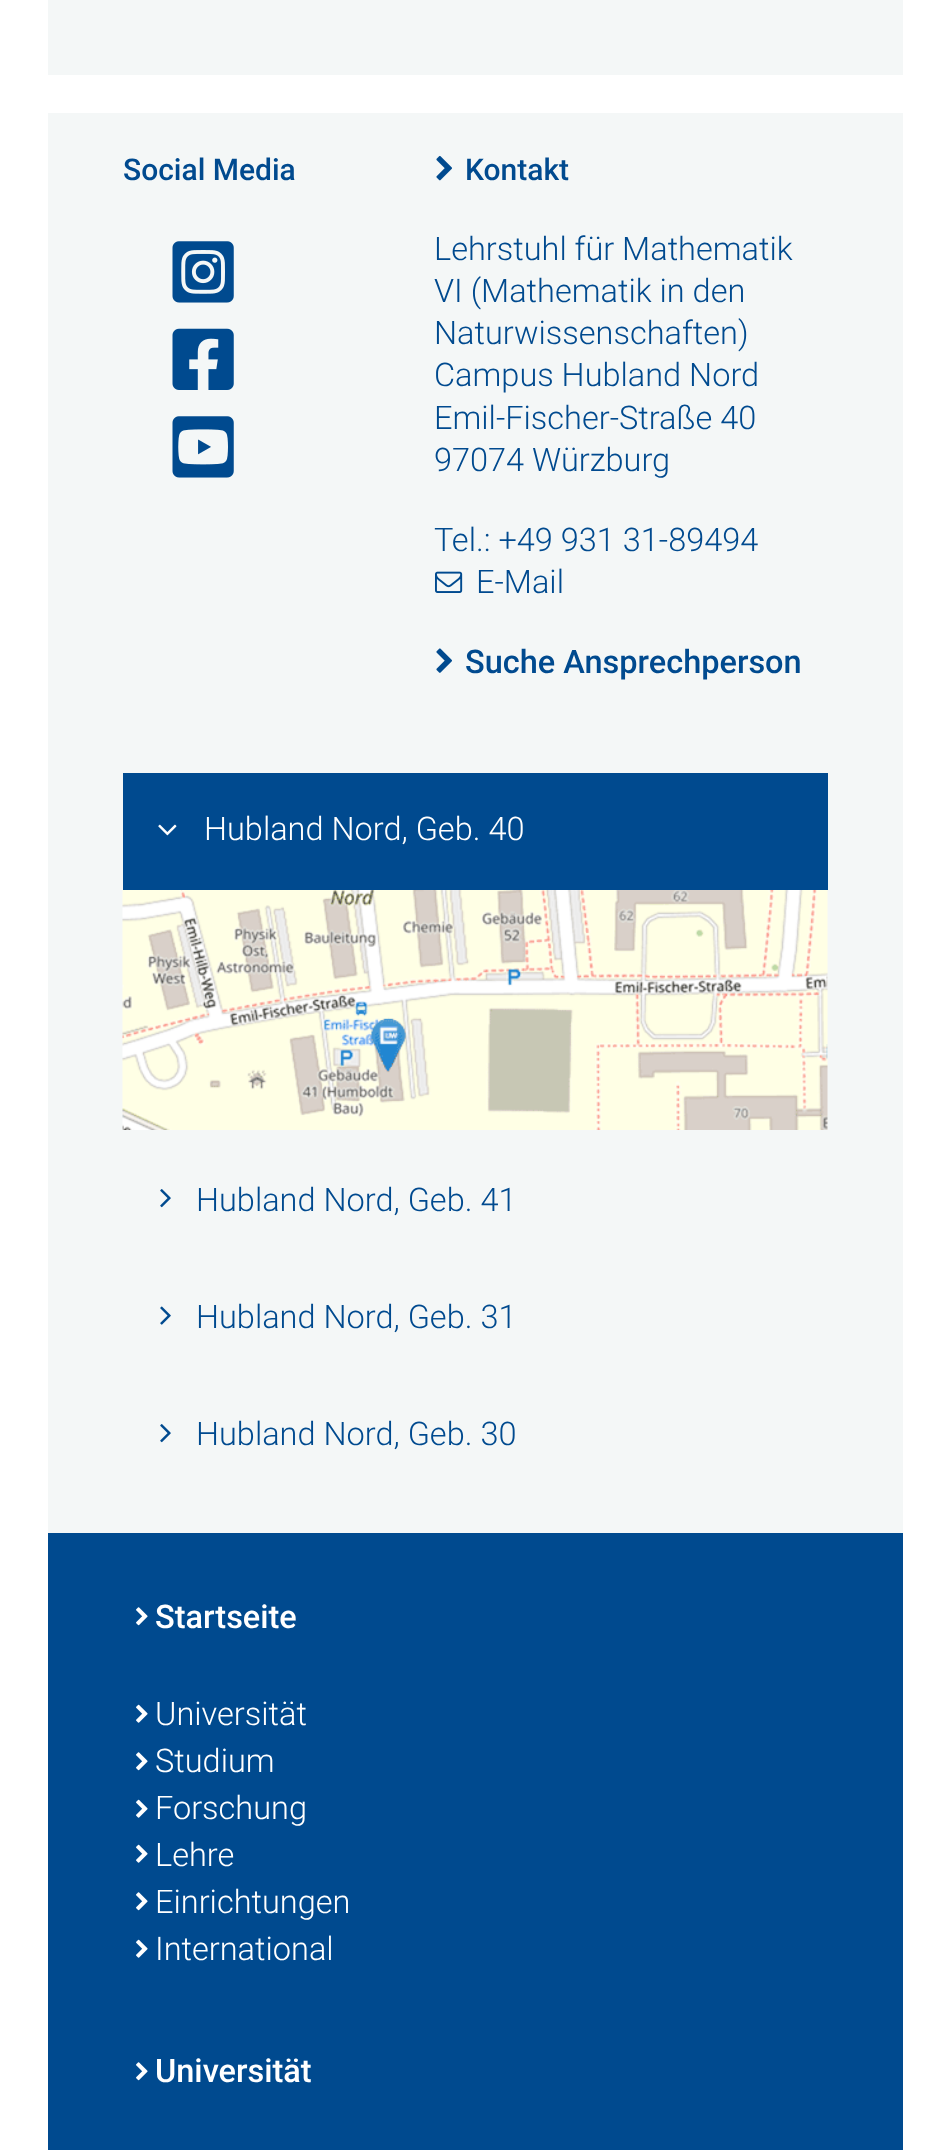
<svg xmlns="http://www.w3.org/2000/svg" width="950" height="2150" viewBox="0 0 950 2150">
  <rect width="100%" height="100%" fill="#fff"/>
  <path d="M85 0h818v25H85z" fill="#f4f7f7"/>
  <path d="M85 25h818v50H85z" fill="#f4f7f7"/>
  <path d="M48 0h37v75H48z" fill="#f4f7f7"/>
  <path d="M48 113h855v1420H48z" fill="#f4f7f7"/>
  <image x="172" y="241" width="62" height="62" href="img/1.png"/>
  <image x="172" y="328" width="62" height="62" href="img/2.png"/>
  <image x="172" y="416" width="62" height="62" href="img/3.png"/>
  <image x="436" y="155" width="16" height="26" href="img/4.png"/>
  <image x="435" y="571" width="28" height="22" href="img/5.png"/>
  <image x="436" y="648" width="16" height="25" href="img/6.png"/>
  <path d="M123 773h705v117H123z" fill="#004a8f"/>
  <image x="158" y="824" width="19" height="12" href="img/7.png"/>
  <image x="122" y="890" width="706" height="240" href="img/8.png"/>
  <image x="160" y="1189" width="11" height="19" href="img/9.png"/>
  <image x="160" y="1306" width="11" height="19" href="img/10.png"/>
  <image x="160" y="1424" width="11" height="19" href="img/9.png"/>
  <path d="M48 1533h855v617H48z" fill="#004a8f"/>
  <image x="136" y="1607" width="12" height="19" href="img/11.png"/>
  <image x="136" y="1704" width="12" height="19" href="img/12.png"/>
  <image x="136" y="1752" width="12" height="19" href="img/11.png"/>
  <image x="136" y="1799" width="12" height="19" href="img/12.png"/>
  <image x="136" y="1844" width="12" height="19" href="img/12.png"/>
  <image x="136" y="1892" width="12" height="19" href="img/11.png"/>
  <image x="136" y="1939" width="12" height="19" href="img/12.png"/>
  <image x="136" y="2062" width="12" height="19" href="img/11.png"/>
  <g font-family="Roboto" font-size="30" font-weight="500" fill="#004a8f">
    <text x="123" y="180">Social Media</text>
    <text x="465" y="180">Kontakt</text>
  </g>
  <g font-family="Roboto" font-size="32.5" font-weight="300" fill="#004a8f">
    <text x="434" y="260">Lehrstuhl für Mathematik</text>
    <text x="434" y="302">VI (Mathematik in den</text>
    <text x="434" y="344">Naturwissenschaften)</text>
    <text x="434" y="386">Campus Hubland Nord</text>
    <text x="434" y="429">Emil-Fischer-Straße 40</text>
    <text x="434" y="471">97074 Würzburg</text>
    <text x="434" y="551">Tel.: +49 931 31-89494</text>
    <text x="476" y="593">E-Mail</text>
  </g>
  <text x="465" y="673" font-family="Roboto" font-size="32.5" font-weight="500" fill="#004a8f">Suche Ansprechperson</text>
  <text x="204" y="840" font-family="Roboto" font-size="32.5" font-weight="300" fill="#fff">Hubland Nord, Geb. 40</text>
  <g font-family="Roboto" font-size="32.5" font-weight="300" fill="#004a8f">
    <text x="196" y="1211">Hubland Nord, Geb. 41</text>
    <text x="196" y="1328">Hubland Nord, Geb. 31</text>
    <text x="196" y="1445">Hubland Nord, Geb. 30</text>
  </g>
  <text x="155" y="1628" font-family="Roboto" font-size="32.5" font-weight="500" fill="#fff">Startseite</text>
  <g font-family="Roboto" font-size="32.5" font-weight="300" fill="#fff">
    <text x="155" y="1725">Universität</text>
    <text x="155" y="1772">Studium</text>
    <text x="155" y="1819">Forschung</text>
    <text x="155" y="1866">Lehre</text>
    <text x="155" y="1913">Einrichtungen</text>
    <text x="155" y="1960">International</text>
  </g>
  <text x="155" y="2082" font-family="Roboto" font-size="32.5" font-weight="500" fill="#fff">Universität</text>
</svg>
